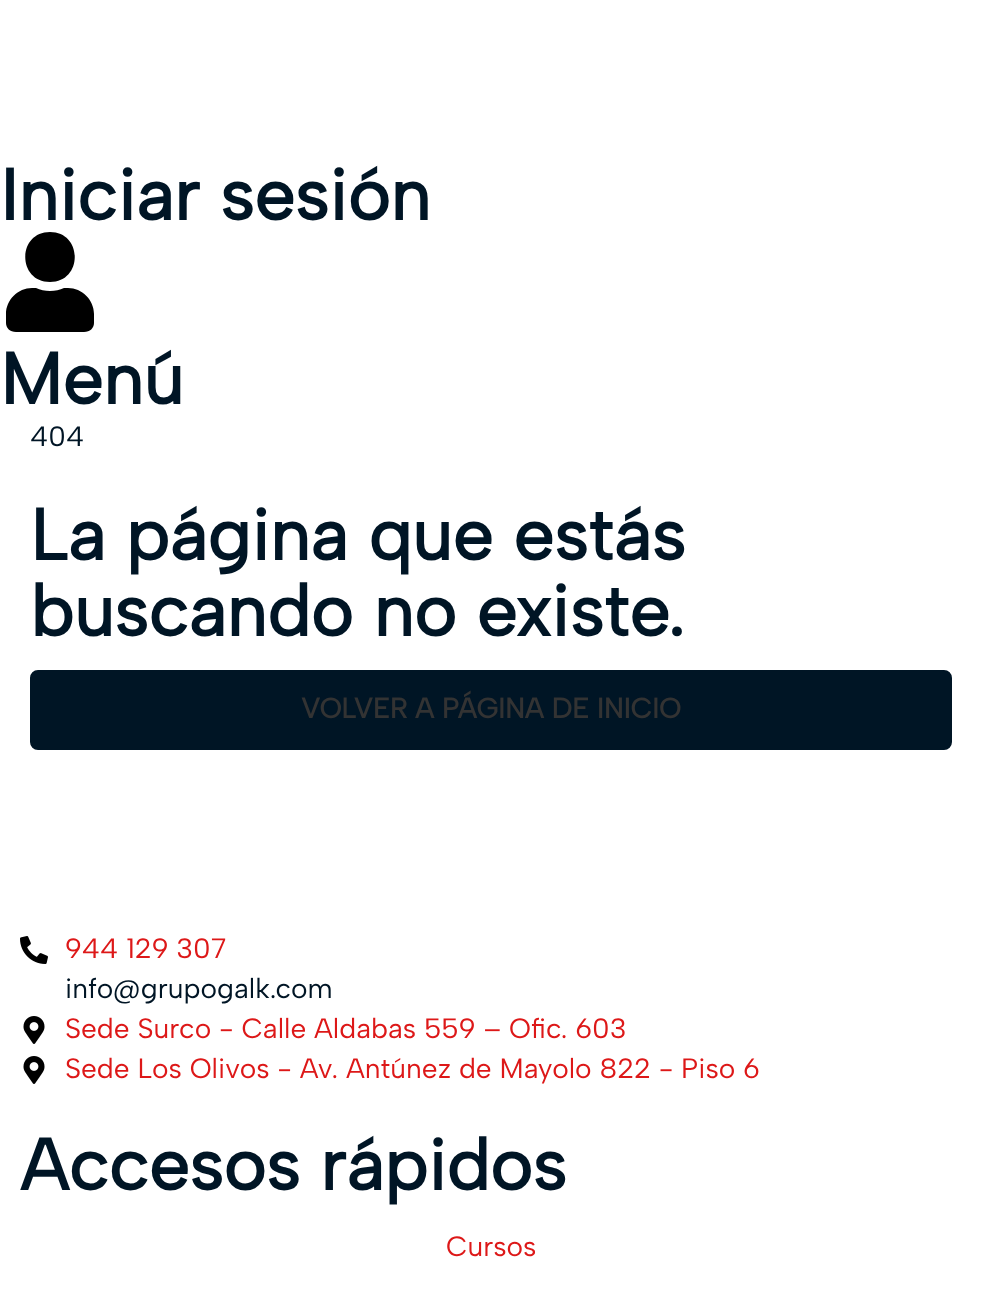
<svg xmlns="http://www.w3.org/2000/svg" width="981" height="1291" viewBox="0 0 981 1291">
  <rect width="100%" height="100%" fill="#fff"/>
  <path d="M50 282C83 282 83 232 50 232C17 232 17 282 50 282ZM68 288H64C60 290 55 291 50 291C45 291 40 290 36 288H32C18 288 6 300 6 314V323C6 328 10 332 16 332H84C90 332 94 328 94 323V314C94 300 82 288 68 288Z" fill="#000"/>
  <rect x="31" y="671" width="920" height="78" rx="7" fill="#001525" stroke="#001525" stroke-width="2"/>
  <image x="20" y="936" width="28" height="28" href="img/1.png"/>
  <image x="23" y="1016" width="22" height="28" href="img/2.png"/>
  <image x="23" y="1056" width="22" height="28" href="img/2.png"/>
  <g font-family="Albert Sans" font-size="72" font-weight="bold" fill="#001525">
    <text x="0" y="220">Iniciar sesión</text>
    <text x="0" y="404">Menú</text>
  </g>
  <text x="30" y="446" font-family="Albert Sans" font-size="28" fill="#001525">404</text>
  <g font-family="Albert Sans" font-size="72" font-weight="bold" fill="#001525">
    <text x="30" y="560">La página que estás</text>
    <text x="30" y="636">buscando no existe.</text>
  </g>
  <text x="301" y="718" font-family="Albert Sans" font-size="28" font-weight="bold" fill="#333">VOLVER A PÁGINA DE INICIO</text>
  <text x="65" y="958" font-family="Albert Sans" font-size="28" fill="#dd1818">944 129 307</text>
  <text x="65" y="998" font-family="Albert Sans" font-size="28" fill="#001525">info@grupogalk.com</text>
  <g font-family="Albert Sans" font-size="28" fill="#dd1818">
    <text x="65" y="1038">Sede Surco - Calle Aldabas 559 – Ofic. 603</text>
    <text x="65" y="1078">Sede Los Olivos - Av. Antúnez de Mayolo 822 - Piso 6</text>
  </g>
  <text x="20" y="1190" font-family="Albert Sans" font-size="72" font-weight="bold" fill="#001525">Accesos rápidos</text>
  <text x="446" y="1256" font-family="Albert Sans" font-size="28" fill="#dd1818">Cursos</text>
</svg>
